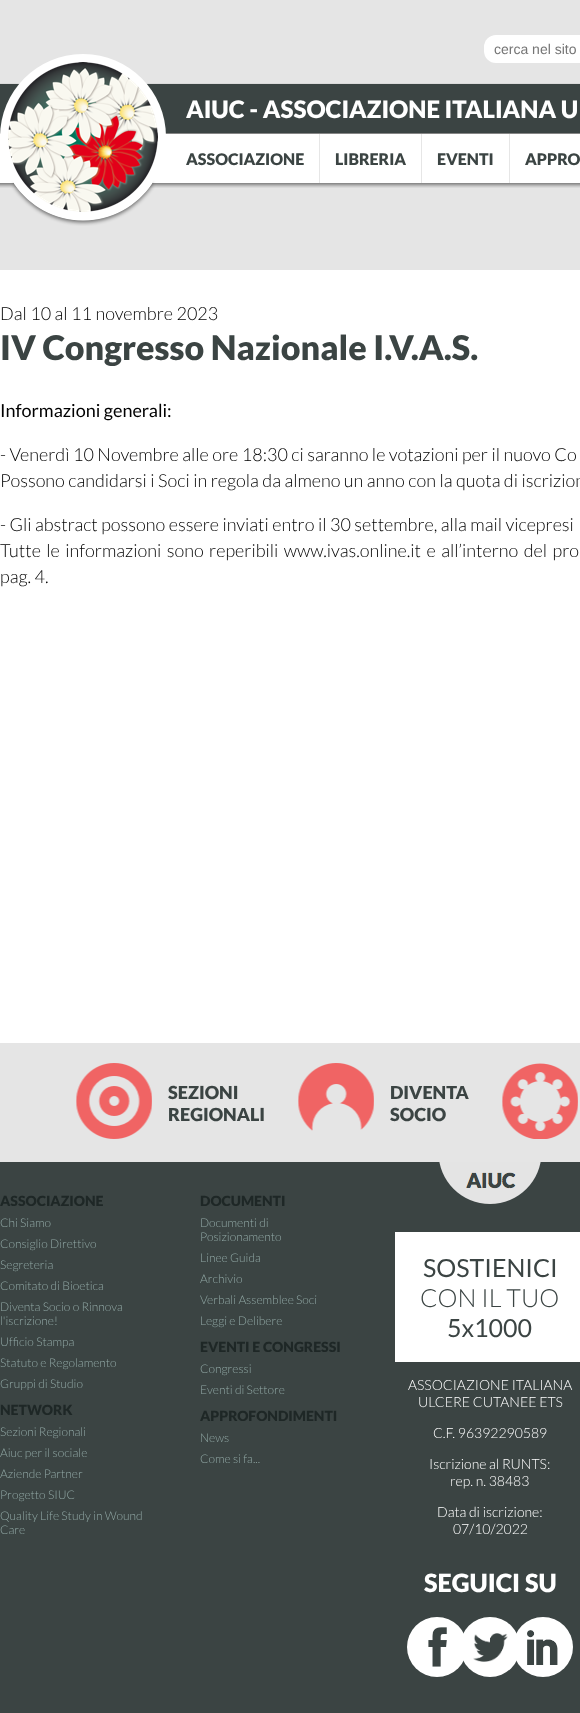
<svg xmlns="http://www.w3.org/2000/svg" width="580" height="1713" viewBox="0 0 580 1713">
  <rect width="100%" height="100%" fill="#fff"/>
  <path d="M0 0h580v270H0z" fill="#e5e5e5"/>
  <image x="0" y="83" width="580" height="105" href="img/1.png"/>
  <rect x="484" y="35" width="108" height="28" rx="12" fill="#fff"/>
  <image x="0" y="54" width="166" height="172" href="img/2.png"/>
  <path d="M319 134h1v49H319z" fill="#e6e6e6"/>
  <path d="M421 134h1v49H421z" fill="#e6e6e6"/>
  <path d="M509 134h1v49H509z" fill="#e6e6e6"/>
  <path d="M0 1162h580v551H0z" fill="#3b4443"/>
  <path d="M0 1043h580v119H0z" fill="#e5e5e5"/>
  <image x="76" y="1063" width="76" height="76" href="img/3.png"/>
  <image x="298" y="1063" width="76" height="68" href="img/4.png"/>
  <image x="502" y="1063" width="76" height="76" href="img/5.png"/>
  <image x="439" y="1162" width="102" height="42" href="img/6.png"/>
  <path d="M395 1232h185v130H395z" fill="#fff"/>
  <circle cx="437" cy="1647" r="30" fill="#fff"/>
  <image x="428" y="1627" width="19" height="40" href="img/7.png"/>
  <circle cx="490" cy="1647" r="30" fill="#fff"/>
  <image x="473" y="1633" width="35" height="29" href="img/8.png"/>
  <circle cx="543" cy="1647" r="30" fill="#fff"/>
  <image x="527" y="1630" width="31" height="35" href="img/9.png"/>
  <text x="494" y="54" font-family="Liberation Sans" font-size="14" fill="#757575">cerca nel sito</text>
  <text x="186" y="118" font-family="Lato" font-size="24" font-weight="900" fill="#fff">AIUC - ASSOCIAZIONE ITALIANA U</text>
  <g font-family="Lato" font-size="16" font-weight="900" fill="#3b4443">
    <text x="186" y="165">ASSOCIAZIONE</text>
    <text x="335" y="165">LIBRERIA</text>
    <text x="437" y="165">EVENTI</text>
    <text x="525" y="165">APPRO</text>
  </g>
  <text x="0" y="320" font-family="Lato" font-size="18" font-weight="300" fill="#000">Dal 10 al 11 novembre 2023</text>
  <text x="0" y="360" font-family="Lato" font-size="34" font-weight="900" fill="#3b4443">IV Congresso Nazionale I.V.A.S.</text>
  <text x="0" y="417" font-family="Lato" font-size="18" fill="#000">Informazioni generali:</text>
  <g font-family="Lato" font-size="18" font-weight="300" fill="#000">
    <text x="0" y="461">- Venerdì 10 Novembre alle ore 18:30 ci saranno le votazioni per il nuovo Co</text>
    <text x="0" y="487">Possono candidarsi i Soci in regola da almeno un anno con la quota di iscrizion</text>
    <text x="0" y="531">- Gli abstract possono essere inviati entro il 30 settembre, alla mail vicepresi</text>
    <text x="0" y="557" word-spacing="2">Tutte le informazioni sono reperibili www.ivas.online.it e all’interno del pro</text>
    <text x="0" y="583">pag. 4.</text>
  </g>
  <g font-family="Lato" font-size="18" font-weight="900" fill="#3b4443">
    <text x="168" y="1099">SEZIONI</text>
    <text x="168" y="1121">REGIONALI</text>
    <text x="390" y="1099">DIVENTA</text>
    <text x="390" y="1121">SOCIO</text>
  </g>
  <text x="0" y="1206" font-family="Lato" font-size="14" font-weight="900" fill="#1e2726">ASSOCIAZIONE</text>
  <g font-family="Lato" font-size="12" font-weight="300" fill="#90a7a4">
    <text x="0" y="1227">Chi Siamo</text>
    <text x="0" y="1248">Consiglio Direttivo</text>
    <text x="0" y="1269">Segreteria</text>
    <text x="0" y="1290">Comitato di Bioetica</text>
    <text x="0" y="1311">Diventa Socio o Rinnova</text>
    <text x="0" y="1325">l'iscrizione!</text>
    <text x="0" y="1346">Ufficio Stampa</text>
    <text x="0" y="1367">Statuto e Regolamento</text>
    <text x="0" y="1388">Gruppi di Studio</text>
  </g>
  <text x="0" y="1415" font-family="Lato" font-size="14" font-weight="900" fill="#1e2726">NETWORK</text>
  <g font-family="Lato" font-size="12" font-weight="300" fill="#90a7a4">
    <text x="0" y="1436">Sezioni Regionali</text>
    <text x="0" y="1457">Aiuc per il sociale</text>
    <text x="0" y="1478">Aziende Partner</text>
    <text x="0" y="1499">Progetto SIUC</text>
    <text x="0" y="1520">Quality Life Study in Wound</text>
    <text x="0" y="1534">Care</text>
  </g>
  <text x="200" y="1206" font-family="Lato" font-size="14" font-weight="900" fill="#1e2726">DOCUMENTI</text>
  <g font-family="Lato" font-size="12" font-weight="300" fill="#90a7a4">
    <text x="200" y="1227">Documenti di</text>
    <text x="200" y="1241">Posizionamento</text>
    <text x="200" y="1262">Linee Guida</text>
    <text x="200" y="1283">Archivio</text>
    <text x="200" y="1304">Verbali Assemblee Soci</text>
    <text x="200" y="1325">Leggi e Delibere</text>
  </g>
  <text x="200" y="1352" font-family="Lato" font-size="14" font-weight="900" fill="#1e2726">EVENTI E CONGRESSI</text>
  <g font-family="Lato" font-size="12" font-weight="300" fill="#90a7a4">
    <text x="200" y="1373">Congressi</text>
    <text x="200" y="1394">Eventi di Settore</text>
  </g>
  <text x="200" y="1421" font-family="Lato" font-size="14" font-weight="900" fill="#1e2726">APPROFONDIMENTI</text>
  <g font-family="Lato" font-size="12" font-weight="300" fill="#90a7a4">
    <text x="200" y="1442">News</text>
    <text x="200" y="1463">Come si fa...</text>
  </g>
  <text x="423" y="1277" font-family="Lato" font-size="25" fill="#3b4443">SOSTIENICI</text>
  <text x="420" y="1307" font-family="Lato" font-size="25" font-weight="300" fill="#3b4443">CON IL TUO</text>
  <text x="447" y="1337" font-family="Lato" font-size="25" fill="#3b4443">5x1000</text>
  <g font-family="Lato" font-size="14" font-weight="300" fill="#fff">
    <text x="408" y="1390">ASSOCIAZIONE ITALIANA</text>
    <text x="418" y="1407">ULCERE CUTANEE ETS</text>
    <text x="433" y="1438">C.F. 96392290589</text>
    <text x="429" y="1469">Iscrizione al RUNTS:</text>
    <text x="450" y="1486">rep. n. 38483</text>
    <text x="437" y="1517">Data di iscrizione:</text>
    <text x="453" y="1534">07/10/2022</text>
  </g>
  <text x="424" y="1592" font-family="Lato" font-size="25" font-weight="900" fill="#fff">SEGUICI SU</text>
</svg>
